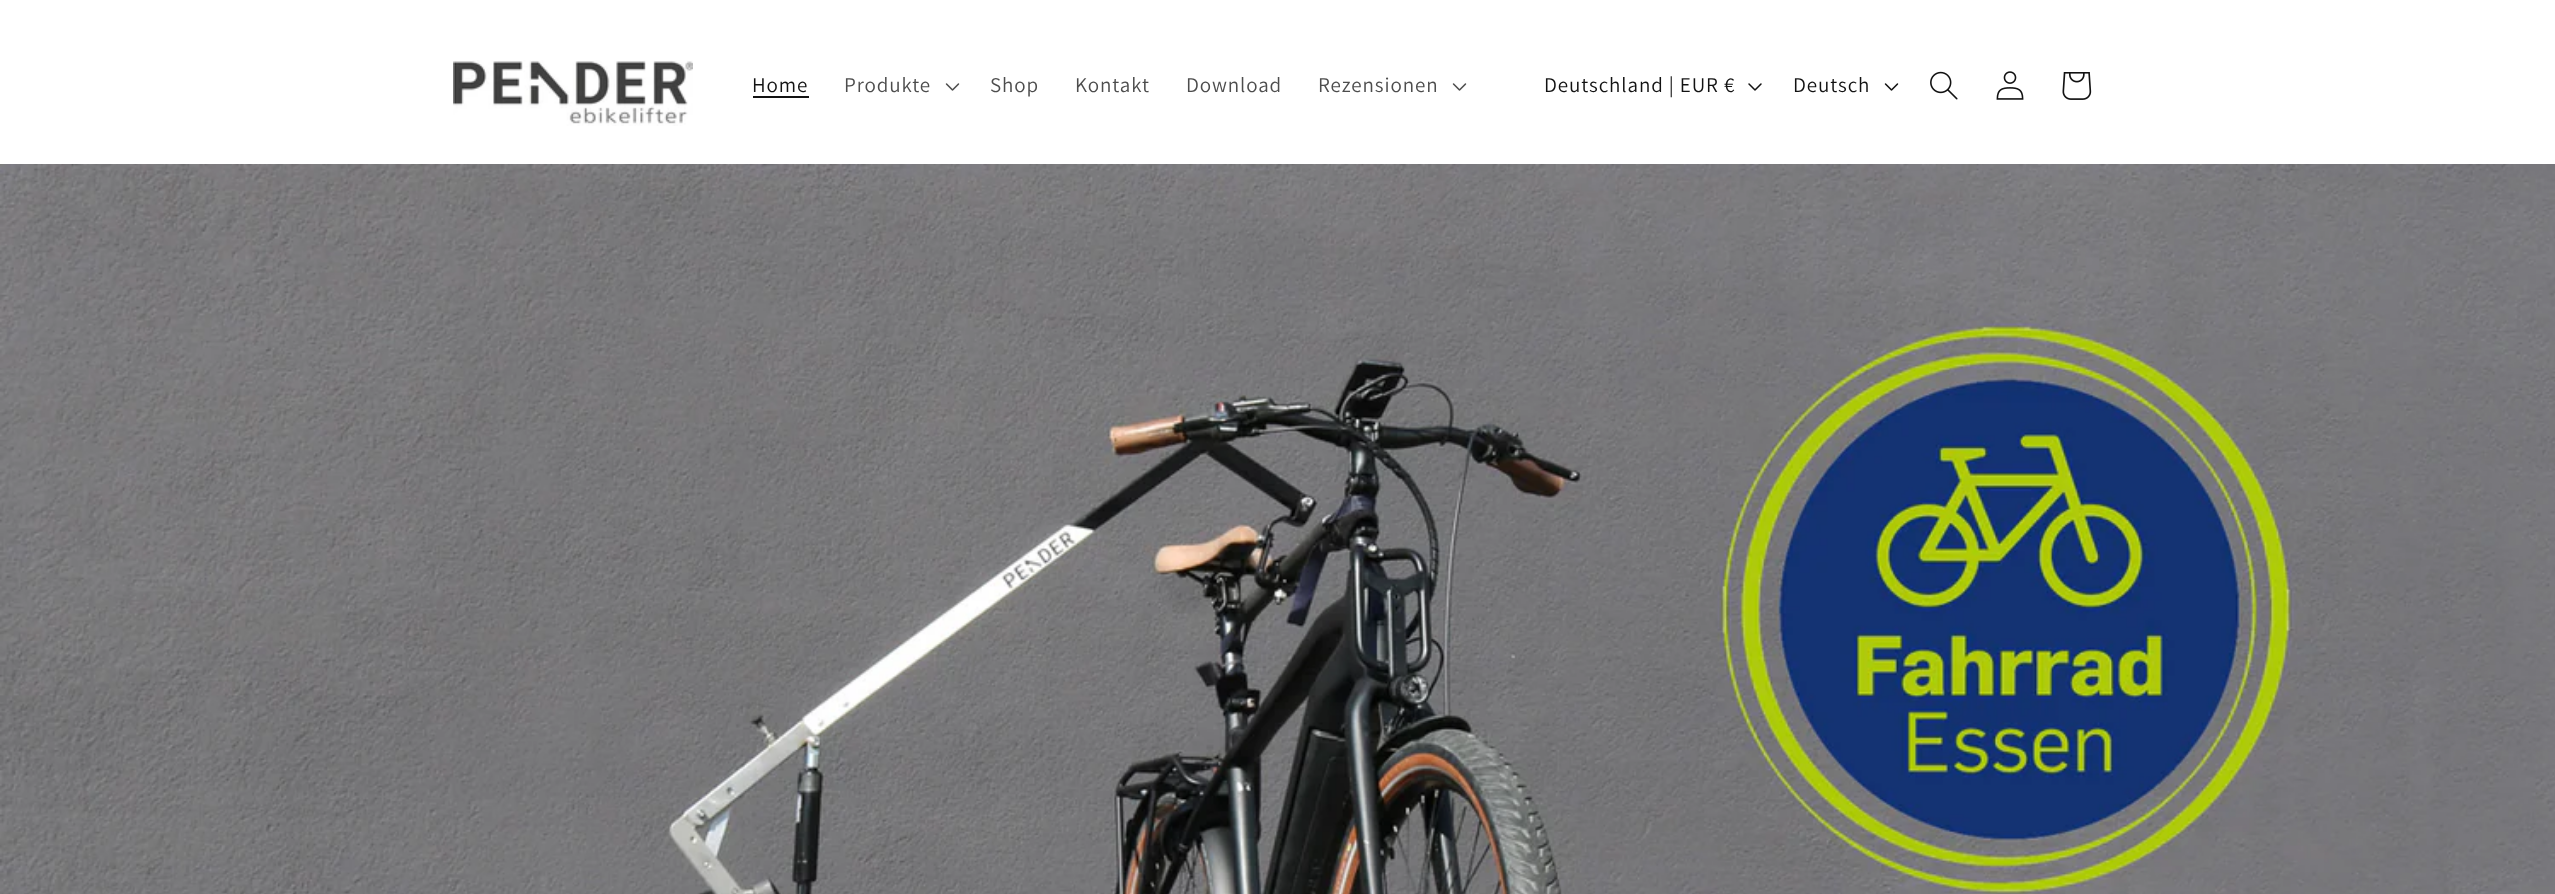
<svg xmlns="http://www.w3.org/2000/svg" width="2555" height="894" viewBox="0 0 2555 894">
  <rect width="100%" height="100%" fill="#fff"/>
  <image x="453" y="60" width="240" height="66" href="img/1.png"/>
  <path d="M753 96h56v2H753z" fill="#121212"/>
  <image x="945" y="83" width="15" height="8" href="img/2.png"/>
  <image x="1452" y="83" width="15" height="8" href="img/2.png"/>
  <image x="1748" y="83" width="14" height="8" href="img/3.png"/>
  <image x="1884" y="83" width="15" height="8" href="img/4.png"/>
  <image x="1930" y="71" width="28" height="29" href="img/5.png"/>
  <image x="1996" y="71" width="28" height="29" href="img/6.png"/>
  <image x="2062" y="72" width="30" height="28" href="img/7.png"/>
  <image x="0" y="164" width="2555" height="730" href="img/8.png"/>
  <text x="752" y="92" font-family="Assistant" font-size="21" letter-spacing="0.9" fill="#121212">Home</text>
  <g font-family="Assistant" font-size="21" letter-spacing="0.9" fill="#4d4d4d">
    <text x="844" y="92">Produkte</text>
    <text x="990" y="92">Shop</text>
    <text x="1075" y="92">Kontakt</text>
    <text x="1186" y="92">Download</text>
    <text x="1318" y="92">Rezensionen</text>
  </g>
  <g font-family="Assistant" font-size="21" letter-spacing="0.9" fill="#121212">
    <text x="1544" y="92">Deutschland | EUR €</text>
    <text x="1793" y="92">Deutsch</text>
  </g>
</svg>
